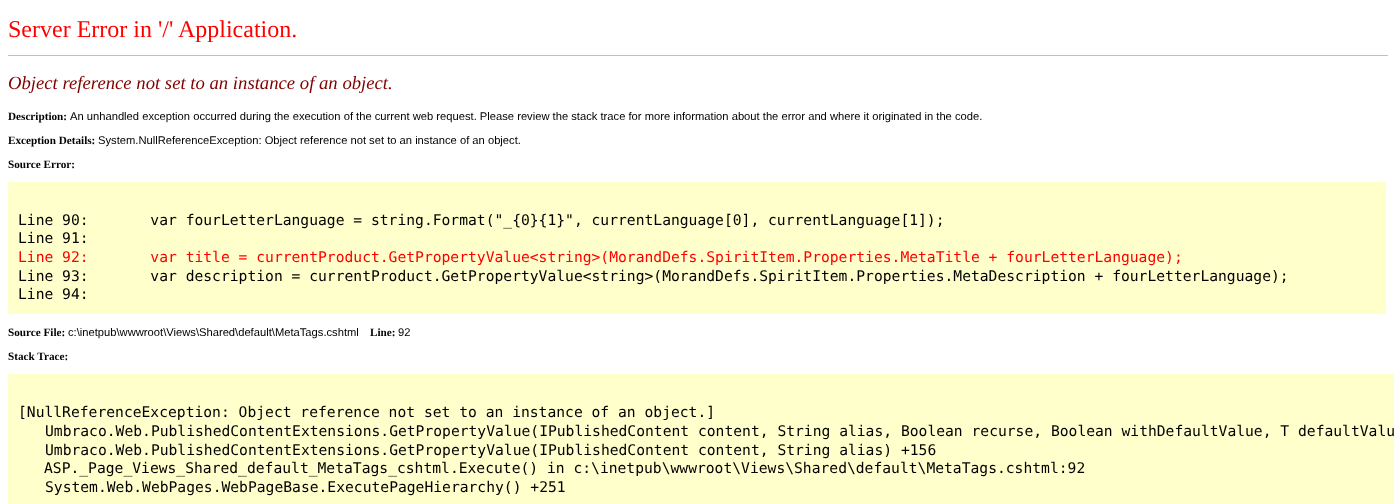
<svg xmlns="http://www.w3.org/2000/svg" width="1394" height="504" viewBox="0 0 1394 504">
  <rect width="100%" height="100%" fill="#fff"/>
  <path d="M8 55h1380v1H8z" fill="#c0c0c0"/>
  <path d="M8 182h1378v132H8z" fill="#ffc"/>
  <path d="M8 374h1386v130H8z" fill="#ffc"/>
  <text x="8" y="37" font-family="Liberation Serif" font-size="24" fill="#f00">Server Error in '/' Application.</text>
  <text x="8" y="89" font-family="Liberation Serif" font-size="18.7" font-style="italic" fill="#800000">Object reference not set to an instance of an object.</text>
  <text x="8" y="120" font-family="Liberation Serif" font-size="11.2" font-weight="bold" fill="#000">Description:</text>
  <text x="70" y="120" font-family="Liberation Sans" font-size="11.2" fill="#000">An unhandled exception occurred during the execution of the current web request. Please review the stack trace for more information about the error and where it originated in the code.</text>
  <text x="8" y="144" font-family="Liberation Serif" font-size="11.2" font-weight="bold" fill="#000">Exception Details:</text>
  <text x="98" y="144" font-family="Liberation Sans" font-size="11.2" fill="#000">System.NullReferenceException: Object reference not set to an instance of an object.</text>
  <text x="8" y="168" font-family="Liberation Serif" font-size="11.2" font-weight="bold" fill="#000">Source Error:</text>
  <g font-family="DejaVu Sans Mono" font-size="14.67" fill="#000">
    <text x="18" y="225" xml:space="preserve">Line 90:       var fourLetterLanguage = string.Format("_{0}{1}", currentLanguage[0], currentLanguage[1]);</text>
    <text x="18" y="243">Line 91:</text>
  </g>
  <text x="18" y="262" font-family="DejaVu Sans Mono" font-size="14.67" fill="#f00" xml:space="preserve">Line 92:       var title = currentProduct.GetPropertyValue&lt;string&gt;(MorandDefs.SpiritItem.Properties.MetaTitle + fourLetterLanguage);</text>
  <g font-family="DejaVu Sans Mono" font-size="14.67" fill="#000">
    <text x="18" y="281" xml:space="preserve">Line 93:       var description = currentProduct.GetPropertyValue&lt;string&gt;(MorandDefs.SpiritItem.Properties.MetaDescription + fourLetterLanguage);</text>
    <text x="18" y="299">Line 94:</text>
  </g>
  <text x="8" y="336" font-family="Liberation Serif" font-size="11.2" font-weight="bold" fill="#000">Source File:</text>
  <text x="68" y="336" font-family="Liberation Sans" font-size="11.2" fill="#000">c:\inetpub\wwwroot\Views\Shared\default\MetaTags.cshtml</text>
  <text x="370" y="336" font-family="Liberation Serif" font-size="11.2" font-weight="bold" fill="#000">Line:</text>
  <text x="398" y="336" font-family="Liberation Sans" font-size="11.2" fill="#000">92</text>
  <text x="8" y="360" font-family="Liberation Serif" font-size="11.2" font-weight="bold" fill="#000">Stack Trace:</text>
  <g font-family="DejaVu Sans Mono" font-size="14.67" fill="#000">
    <text x="18" y="417">[NullReferenceException: Object reference not set to an instance of an object.]</text>
    <text x="45" y="436">Umbraco.Web.PublishedContentExtensions.GetPropertyValue(IPublishedContent content, String alias, Boolean recurse, Boolean withDefaultValue, T defaultValu</text>
    <text x="45" y="455">Umbraco.Web.PublishedContentExtensions.GetPropertyValue(IPublishedContent content, String alias) +156</text>
    <text x="44" y="473">ASP._Page_Views_Shared_default_MetaTags_cshtml.Execute() in c:\inetpub\wwwroot\Views\Shared\default\MetaTags.cshtml:92</text>
    <text x="45" y="492">System.Web.WebPages.WebPageBase.ExecutePageHierarchy() +251</text>
  </g>
</svg>
